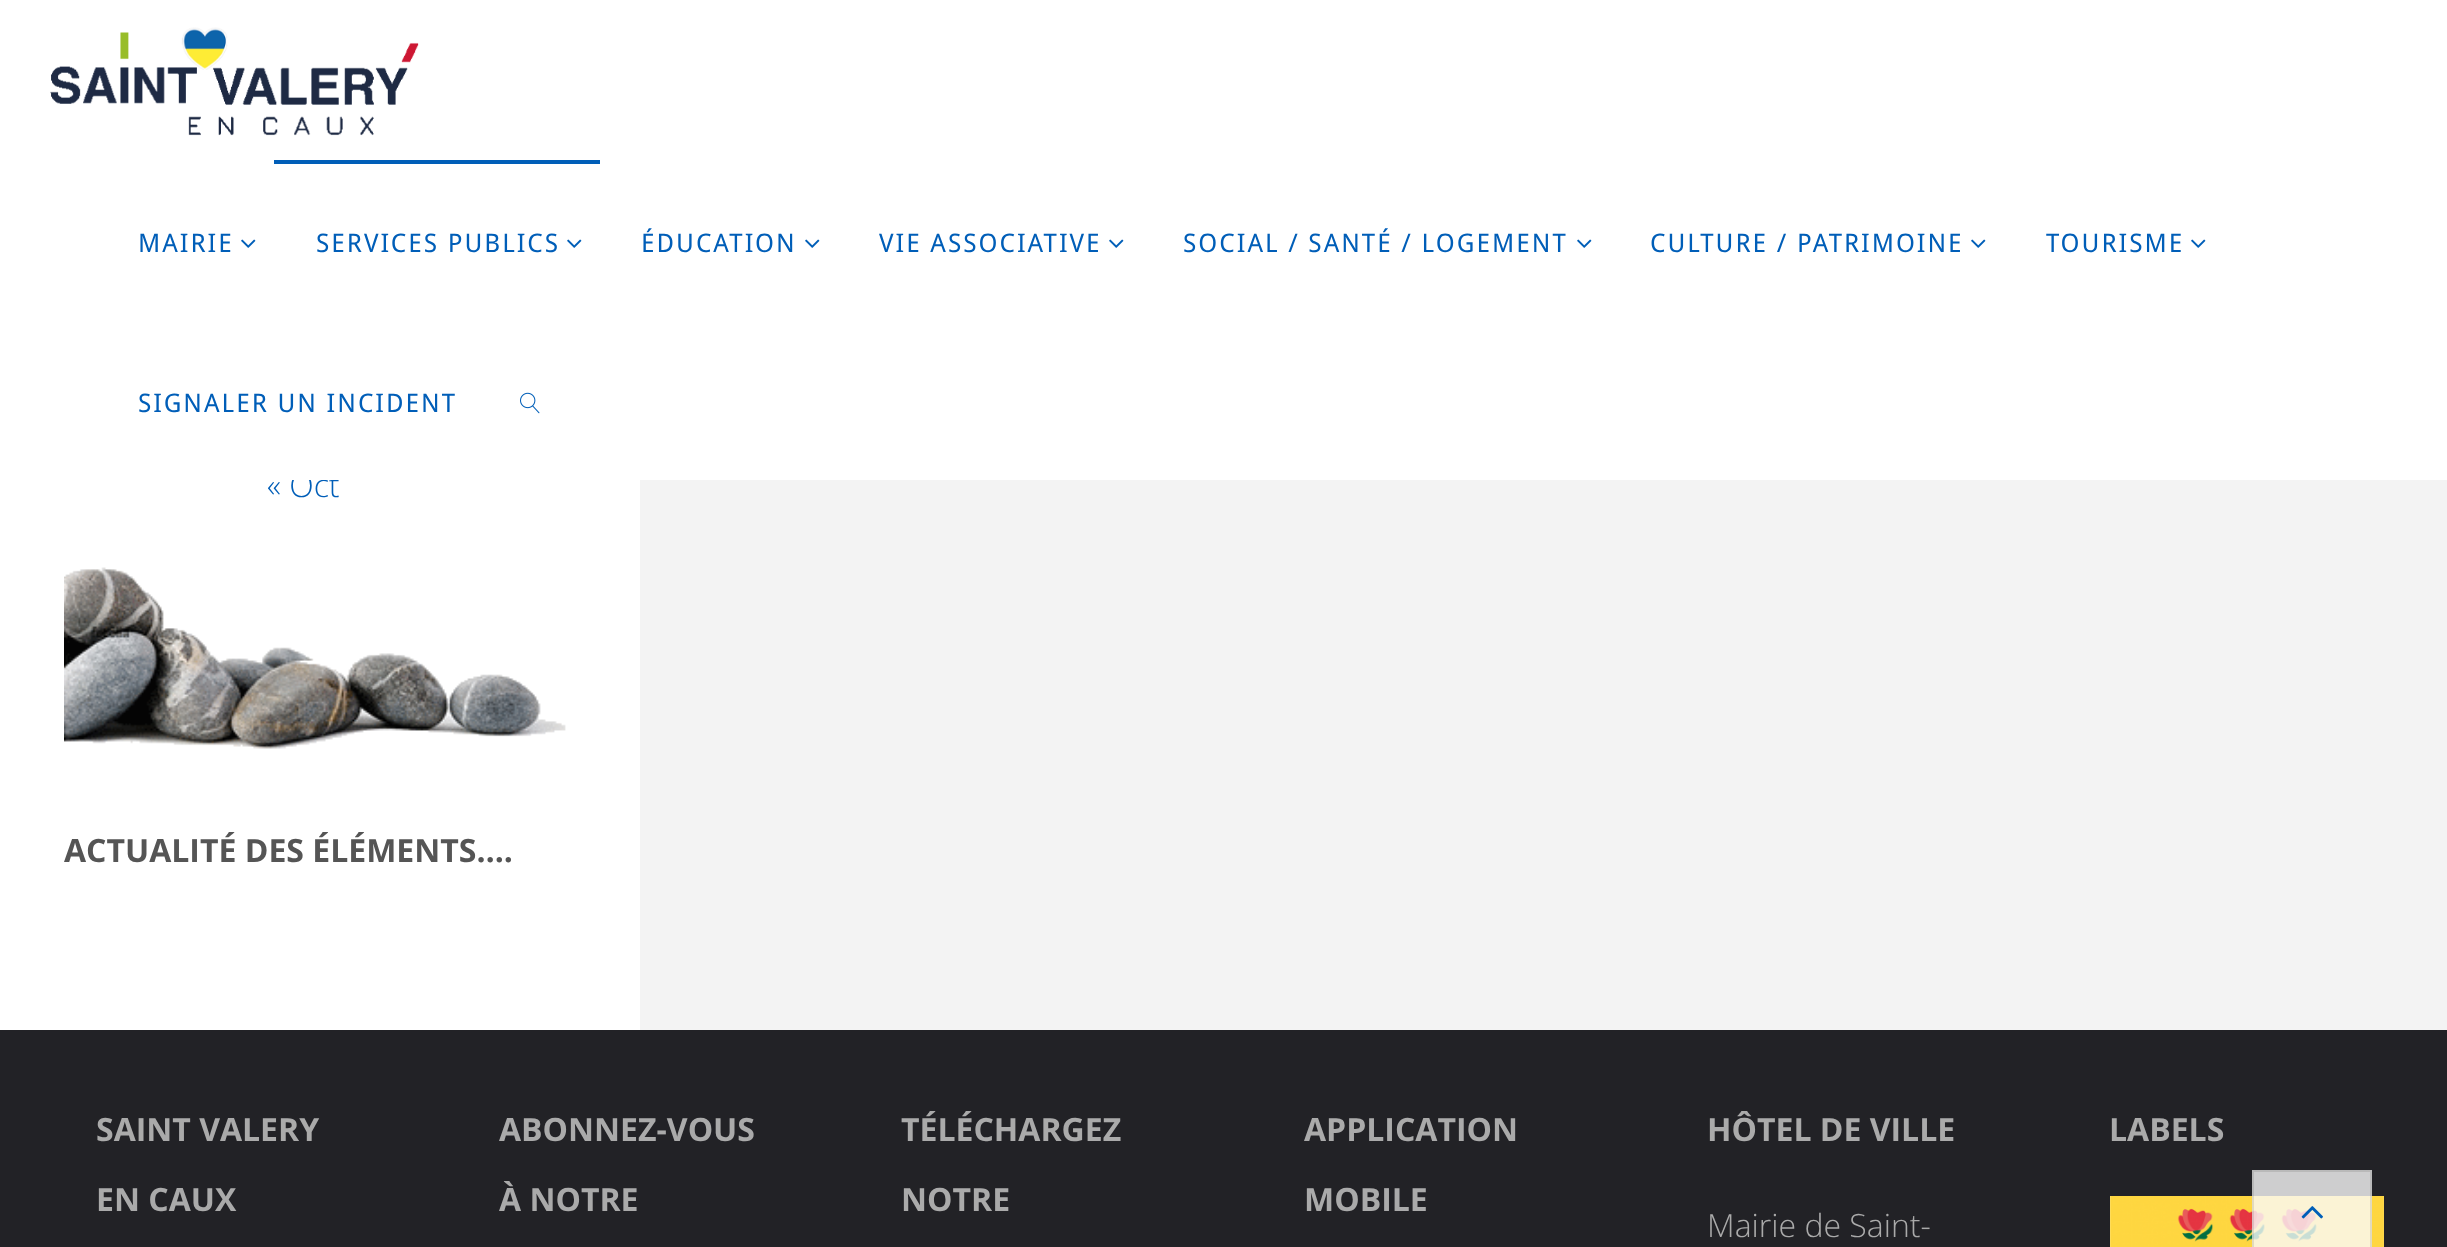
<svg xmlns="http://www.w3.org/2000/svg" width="2447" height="1247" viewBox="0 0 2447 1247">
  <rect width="100%" height="100%" fill="#f3f3f3"/>
  <path d="M0 480h640v550H0z" fill="#fff"/>
  <image x="64" y="567" width="502" height="182" href="img/4.png"/>
  <path d="M0 1030h2447v217H0z" fill="#222226"/>
  <image x="2110" y="1196" width="274" height="51" href="img/5.png"/>
  <path d="M2252 1170h120v77H2252z" fill="#fafafacc"/>
  <path d="M2253 1171h118v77H2253z" fill="none" stroke="#0000001a" stroke-width="2"/>
  <image x="2301" y="1206" width="22" height="13" href="img/6.png"/>
  <text x="267" y="497" font-family="Open Sans" font-size="32" font-weight="300" fill="#005eb8">« Oct</text>
  <path d="M0 0h2447v480H0z" fill="#fff"/>
  <image x="520" y="392" width="20" height="22" href="img/3.png"/>
  <text x="138" y="412" font-family="Droid Sans" font-size="25.6" letter-spacing="2" fill="#005eb8">SIGNALER UN INCIDENT</text>
  <image x="2191" y="239" width="15" height="9" href="img/2.png"/>
  <text x="2046" y="252" font-family="Droid Sans" font-size="25.6" letter-spacing="2" fill="#005eb8">TOURISME</text>
  <image x="1971" y="239" width="15" height="9" href="img/2.png"/>
  <text x="1650" y="252" font-family="Droid Sans" font-size="25.6" letter-spacing="2" fill="#005eb8">CULTURE / PATRIMOINE</text>
  <image x="1577" y="239" width="15" height="9" href="img/2.png"/>
  <text x="1183" y="252" font-family="Droid Sans" font-size="25.6" letter-spacing="2" fill="#005eb8">SOCIAL / SANTÉ / LOGEMENT</text>
  <image x="1109" y="239" width="15" height="9" href="img/2.png"/>
  <text x="879" y="252" font-family="Droid Sans" font-size="25.6" letter-spacing="2" fill="#005eb8">VIE ASSOCIATIVE</text>
  <image x="805" y="239" width="15" height="9" href="img/2.png"/>
  <text x="641" y="252" font-family="Droid Sans" font-size="25.6" letter-spacing="2" fill="#005eb8">ÉDUCATION</text>
  <image x="567" y="239" width="15" height="9" href="img/2.png"/>
  <text x="316" y="252" font-family="Droid Sans" font-size="25.6" letter-spacing="2" fill="#005eb8">SERVICES PUBLICS</text>
  <path d="M274 160h326v4H274z" fill="#005eb8"/>
  <image x="241" y="239" width="15" height="9" href="img/2.png"/>
  <text x="138" y="252" font-family="Droid Sans" font-size="25.6" letter-spacing="2" fill="#005eb8">MAIRIE</text>
  <image x="50" y="27" width="369" height="109" href="img/1.png"/>
  <text x="64" y="862" font-family="Open Sans" font-size="32" font-weight="bold" fill="#555">ACTUALITÉ DES ÉLÉMENTS….</text>
  <g font-family="Open Sans" font-size="32" font-weight="bold" fill="#aaa">
    <text x="96" y="1141">SAINT VALERY</text>
    <text x="96" y="1211">EN CAUX</text>
    <text x="499" y="1141">ABONNEZ-VOUS</text>
    <text x="499" y="1211">À NOTRE</text>
    <text x="901" y="1141">TÉLÉCHARGEZ</text>
    <text x="901" y="1211">NOTRE</text>
    <text x="1304" y="1141">APPLICATION</text>
    <text x="1304" y="1211">MOBILE</text>
    <text x="1707" y="1141">HÔTEL DE VILLE</text>
  </g>
  <text x="1707" y="1237" font-family="Open Sans" font-size="32" font-weight="300" fill="#aaa">Mairie de Saint-</text>
  <text x="2109" y="1141" font-family="Open Sans" font-size="32" font-weight="bold" fill="#aaa">LABELS</text>
</svg>
